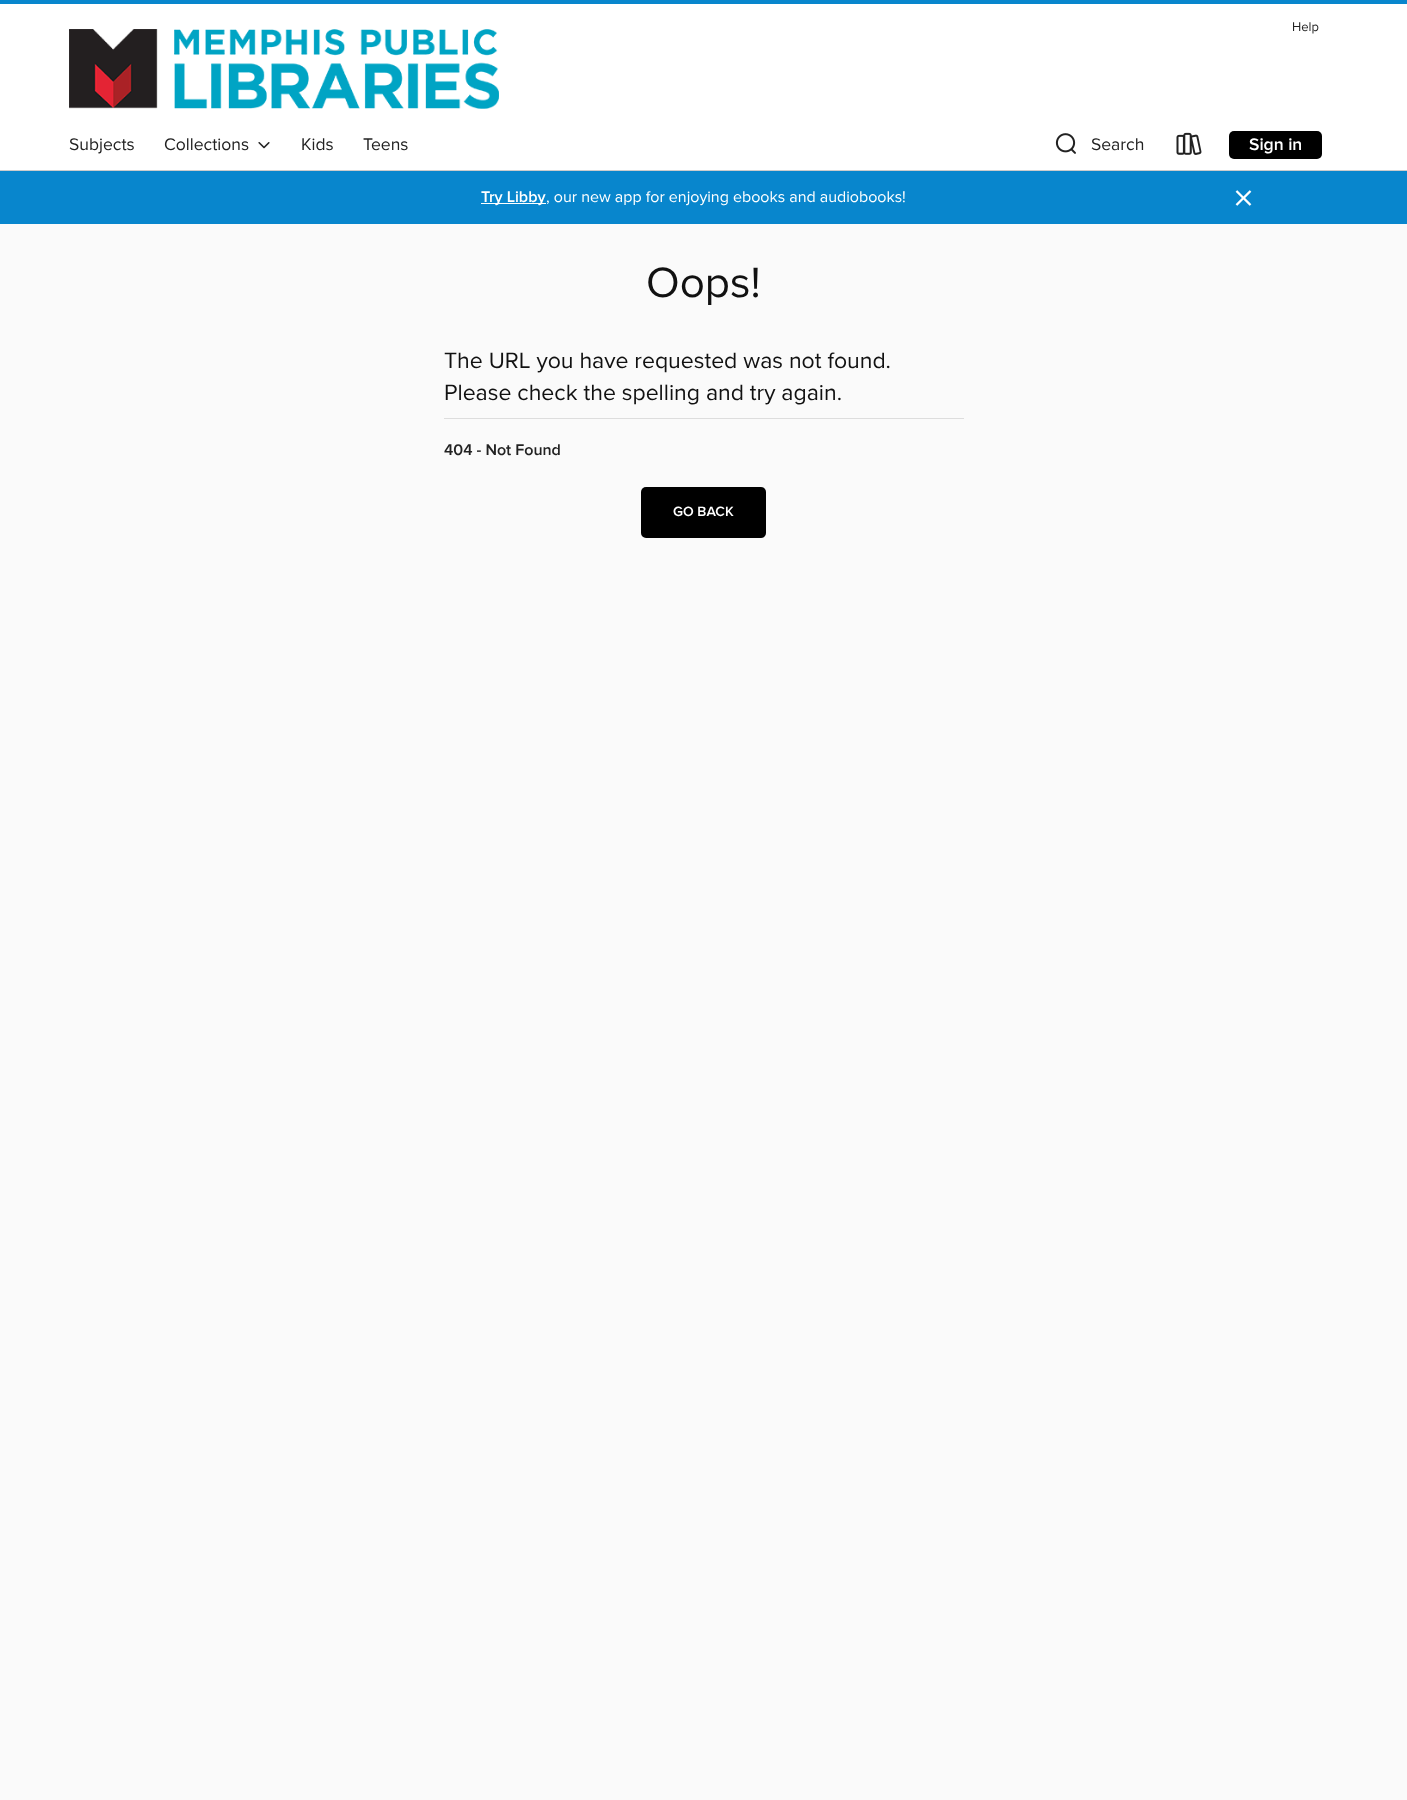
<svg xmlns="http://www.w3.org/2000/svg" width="1407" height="1800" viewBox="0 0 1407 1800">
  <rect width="100%" height="100%" fill="#fafafa"/>
  <path d="M0 4h1407v166H0z" fill="#fff"/>
  <path d="M0 0h1407v4H0z" fill="#0886cd"/>
  <path d="M0 170h1407v1H0z" fill="#ccc"/>
  <image x="69" y="29" width="430" height="80" href="img/1.png"/>
  <image x="258" y="142" width="12" height="7" href="img/2.png"/>
  <image x="1055" y="133" width="21" height="21" href="img/3.png"/>
  <image x="1176" y="132" width="26" height="23" href="img/4.png"/>
  <rect x="1229" y="131" width="93" height="28" rx="5" fill="#000"/>
  <path d="M0 171h1407v53H0z" fill="#0886cd"/>
  <path d="M481 203h65v1H481z" fill="#fff"/>
  <path d="M444 418h520v1H444z" fill="#ddd"/>
  <rect x="641" y="487" width="125" height="51" rx="5" fill="#000"/>
  <text x="1292" y="31" font-family="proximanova" font-size="13" fill="#222">Help</text>
  <g font-family="proximanova" font-size="17.5" fill="#222">
    <text x="69" y="150">Subjects</text>
    <text x="164" y="150">Collections</text>
    <text x="301" y="150">Kids</text>
    <text x="363" y="150">Teens</text>
    <text x="1091" y="150">Search</text>
  </g>
  <text x="1249" y="150" font-family="Proxima Nova" font-size="17.5" font-weight="600" fill="#fff">Sign in</text>
  <text x="481" y="202" font-family="Proxima Nova" font-size="16" font-weight="600" fill="#fff">Try Libby</text>
  <text x="546" y="202" font-family="proximanova" font-size="16" fill="#fff">, our new app for enjoying ebooks and audiobooks!</text>
  <text x="1233" y="212" font-family="proximanova" font-size="42" fill="#fff">×</text>
  <text x="646" y="297" font-family="proximanova" font-size="44" fill="#111">Oops!</text>
  <g font-family="proximanova" font-size="23" fill="#111">
    <text x="444" y="368">The URL you have requested was not found.</text>
    <text x="444" y="400">Please check the spelling and try again.</text>
  </g>
  <text x="444" y="455" font-family="Proxima Nova" font-size="16" font-weight="600" fill="#222">404 - Not Found</text>
  <text x="673" y="516" font-family="Proxima Nova" font-size="14" font-weight="600" fill="#fff">GO BACK</text>
</svg>
